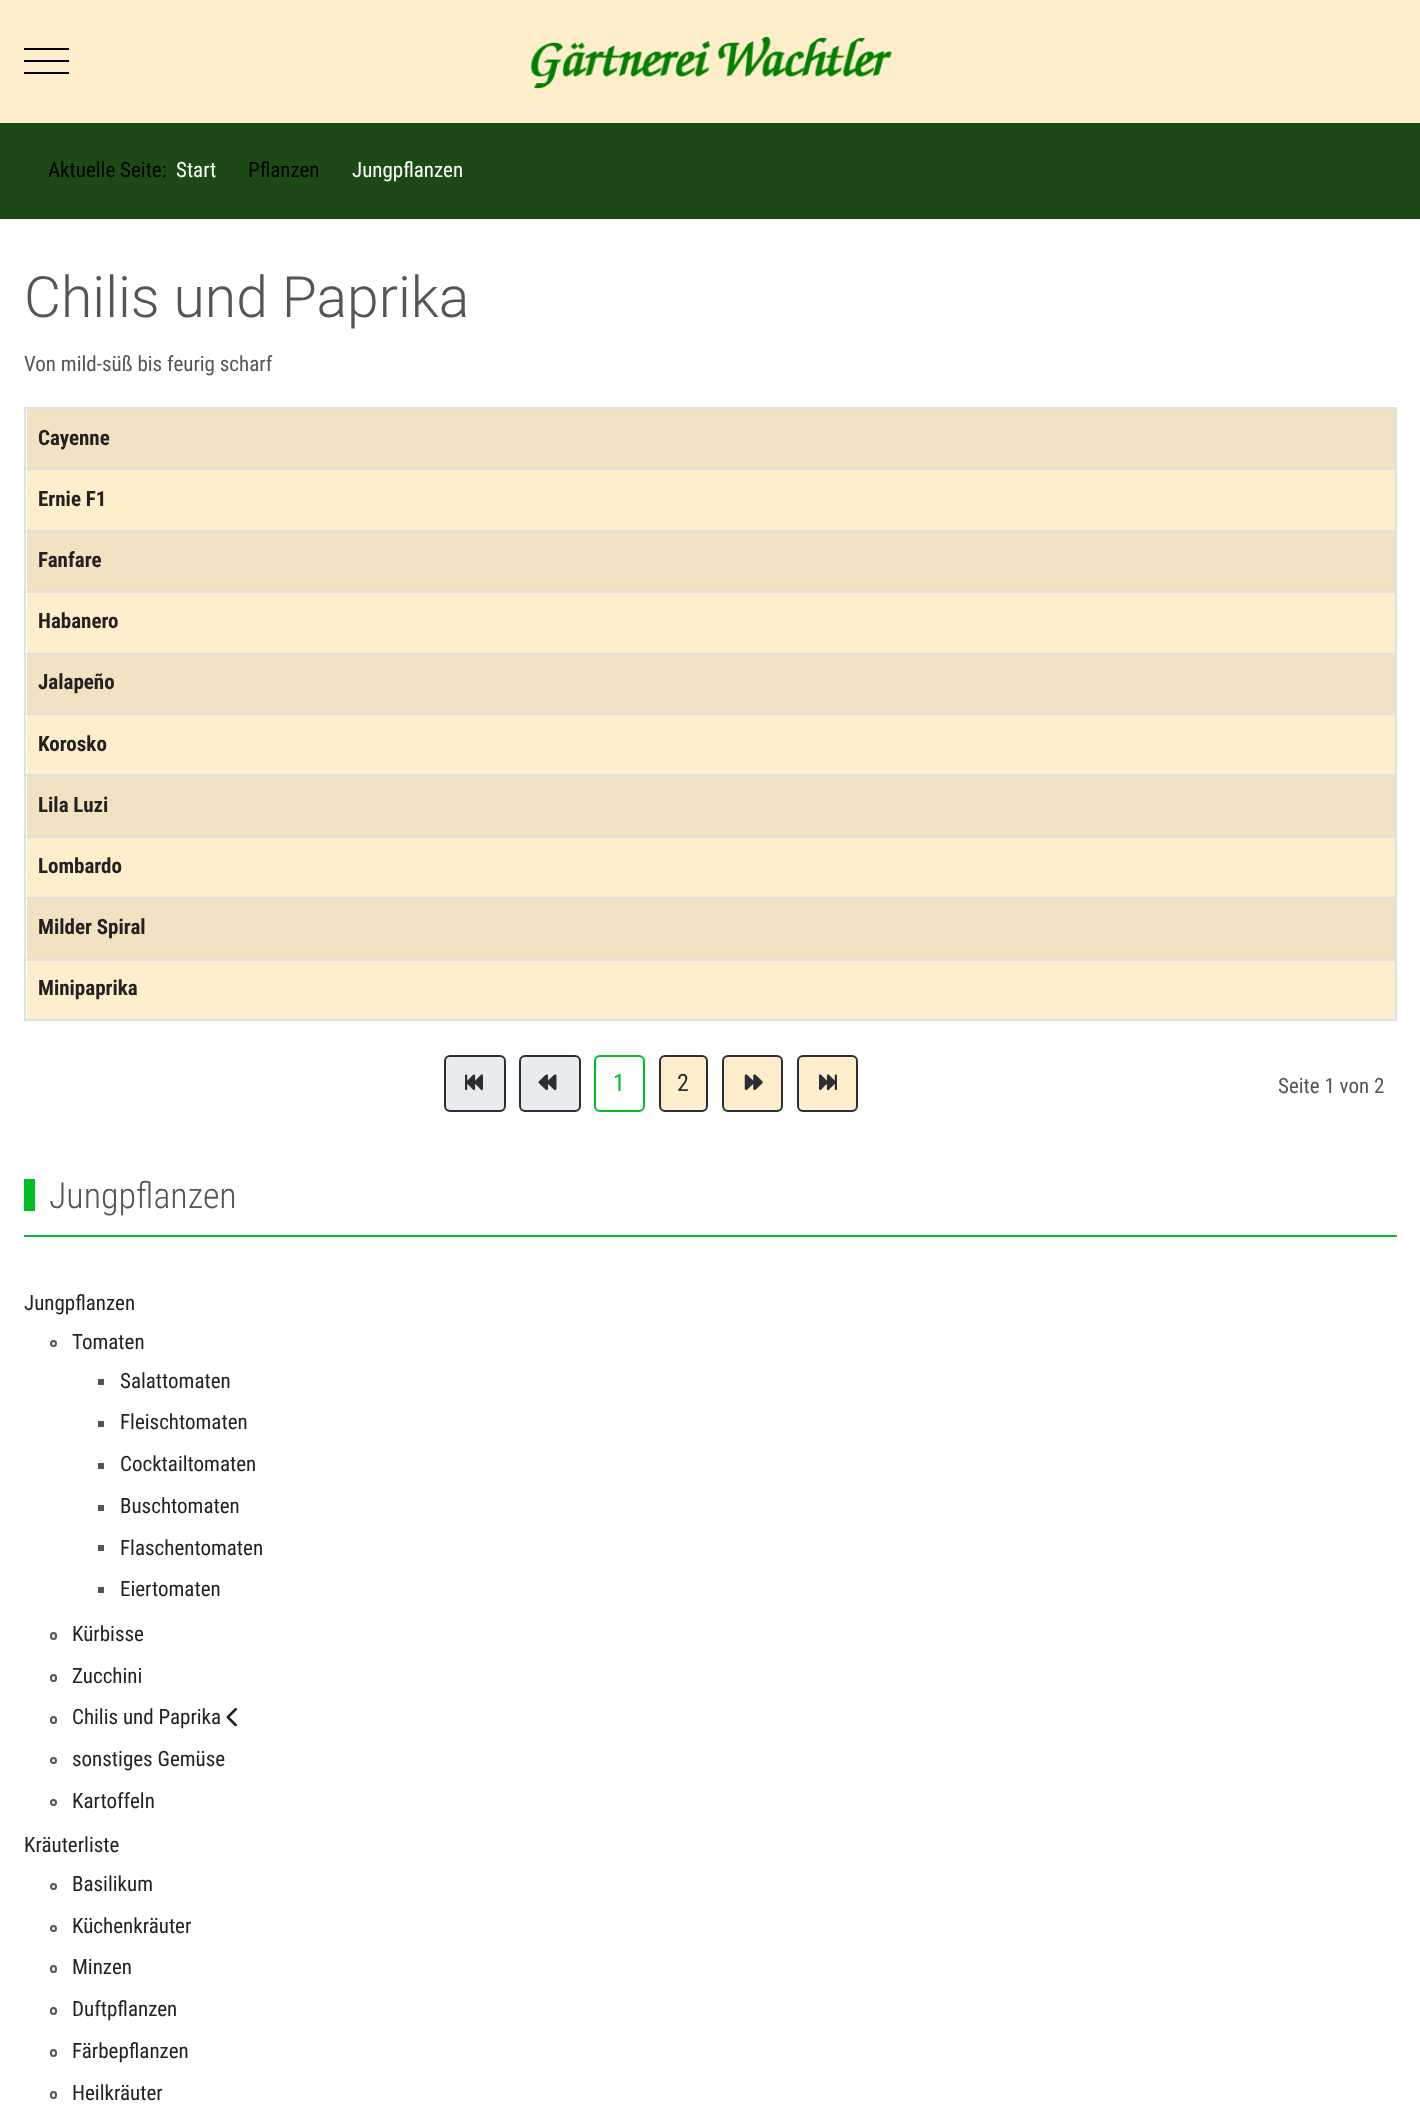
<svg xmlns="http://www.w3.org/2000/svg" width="1420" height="2110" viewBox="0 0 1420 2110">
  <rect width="100%" height="100%" fill="#fec"/>
  <path d="M24 60h45v2H24z" fill="#000"/>
  <path d="M24 48h45v2H24z" fill="#000"/>
  <path d="M24 72h45v2H24z" fill="#000"/>
  <image x="530" y="36" width="363" height="53" href="img/1.png"/>
  <path d="M0 123h1420v96H0z" fill="#1c4a14"/>
  <path d="M0 219h1420v1891H0z" fill="#fff"/>
  <path d="M24 407h1373v2H24z" fill="#dee2e6"/>
  <path d="M27 409h1368v59H27z" fill="#f2e2c2"/>
  <path d="M24 468h1373v2H24z" fill="#dee2e6"/>
  <path d="M27 470h1368v60H27z" fill="#fec"/>
  <path d="M24 530h1373v2H24z" fill="#dee2e6"/>
  <path d="M27 532h1368v59H27z" fill="#f2e2c2"/>
  <path d="M24 591h1373v2H24z" fill="#dee2e6"/>
  <path d="M27 593h1368v60H27z" fill="#fec"/>
  <path d="M24 653h1373v2H24z" fill="#dee2e6"/>
  <path d="M27 655h1368v58H27z" fill="#f2e2c2"/>
  <path d="M24 713h1373v2H24z" fill="#dee2e6"/>
  <path d="M27 715h1368v59H27z" fill="#fec"/>
  <path d="M24 774h1373v2H24z" fill="#dee2e6"/>
  <path d="M27 776h1368v60H27z" fill="#f2e2c2"/>
  <path d="M24 836h1373v2H24z" fill="#dee2e6"/>
  <path d="M27 838h1368v59H27z" fill="#fec"/>
  <path d="M24 897h1373v2H24z" fill="#dee2e6"/>
  <path d="M27 899h1368v60H27z" fill="#f2e2c2"/>
  <path d="M24 959h1373v2H24z" fill="#dee2e6"/>
  <path d="M24 1019h1373v2H24z" fill="#dee2e6"/>
  <path d="M27 961h1368v58H27z" fill="#fec"/>
  <path d="M1395 407h2v613H1395z" fill="#dee2e6"/>
  <path d="M24 407h2v613H24z" fill="#dee2e6"/>
  <rect x="445" y="1056" width="60" height="55" rx="5" fill="#e9ecef" stroke="#2c2e36" stroke-width="2"/>
  <image x="465" y="1074" width="18" height="17" href="img/2.png"/>
  <rect x="520" y="1056" width="60" height="55" rx="5" fill="#e9ecef" stroke="#2c2e36" stroke-width="2"/>
  <image x="538" y="1074" width="19" height="17" href="img/3.png"/>
  <rect x="595" y="1056" width="49" height="55" rx="5" fill="none" stroke="#00bf26" stroke-width="2"/>
  <rect x="660" y="1056" width="47" height="55" rx="5" fill="#fec" stroke="#2c2e36" stroke-width="2"/>
  <rect x="723" y="1056" width="59" height="55" rx="5" fill="#fec" stroke="#2c2e36" stroke-width="2"/>
  <image x="744" y="1074" width="19" height="17" href="img/4.png"/>
  <rect x="798" y="1056" width="59" height="55" rx="5" fill="#fec" stroke="#2c2e36" stroke-width="2"/>
  <image x="819" y="1074" width="18" height="17" href="img/5.png"/>
  <path d="M24 1235h1373v2H24z" fill="#00bf26"/>
  <path d="M24 1179h11v32H24z" fill="#00bf26"/>
  <circle cx="53.5" cy="1343.5" r="2.5" fill="none" stroke="#555" stroke-width="2"/>
  <path d="M98 1379h6v6H98z" fill="#555"/>
  <path d="M98 1421h6v6H98z" fill="#555"/>
  <path d="M98 1463h6v6H98z" fill="#555"/>
  <path d="M98 1505h6v6H98z" fill="#555"/>
  <path d="M98 1545h6v6H98z" fill="#555"/>
  <path d="M98 1587h6v6H98z" fill="#555"/>
  <rect x="51" y="1633" width="5" height="6" rx="2.5" fill="none" stroke="#555" stroke-width="2"/>
  <rect x="51" y="1675" width="5" height="6" rx="2.5" fill="none" stroke="#555" stroke-width="2"/>
  <rect x="51" y="1717" width="5" height="6" rx="2.5" fill="none" stroke="#555" stroke-width="2"/>
  <image x="226" y="1707" width="11" height="20" href="img/6.png"/>
  <circle cx="53.5" cy="1760.5" r="2.5" fill="none" stroke="#555" stroke-width="2"/>
  <circle cx="53.5" cy="1802.5" r="2.5" fill="none" stroke="#555" stroke-width="2"/>
  <circle cx="53.5" cy="1886.5" r="2.5" fill="none" stroke="#555" stroke-width="2"/>
  <circle cx="53.5" cy="1928.5" r="2.5" fill="none" stroke="#555" stroke-width="2"/>
  <rect x="51" y="1966" width="5" height="6" rx="2.5" fill="none" stroke="#555" stroke-width="2"/>
  <rect x="51" y="2008" width="5" height="6" rx="2.5" fill="none" stroke="#555" stroke-width="2"/>
  <rect x="51" y="2050" width="5" height="6" rx="2.5" fill="none" stroke="#555" stroke-width="2"/>
  <rect x="51" y="2092" width="5" height="6" rx="2.5" fill="none" stroke="#555" stroke-width="2"/>
  <text x="48" y="177" font-family="Roboto Condensed" font-size="21" fill="#000">Aktuelle Seite:</text>
  <text x="176" y="177" font-family="Roboto Condensed" font-size="21" fill="#fff">Start</text>
  <text x="248" y="177" font-family="Roboto Condensed" font-size="21" fill="#000">Pflanzen</text>
  <text x="352" y="177" font-family="Roboto Condensed" font-size="21" fill="#fff">Jungpflanzen</text>
  <text x="24" y="317" font-family="Roboto" font-size="57" font-weight="300" fill="#555">Chilis und Paprika</text>
  <text x="24" y="371" font-family="Roboto Condensed" font-size="21" fill="#555">Von mild-süß bis feurig scharf</text>
  <g font-family="Roboto Condensed" font-size="21" font-weight="bold" fill="#222">
    <text x="38" y="445">Cayenne</text>
    <text x="38" y="506">Ernie F1</text>
    <text x="38" y="567">Fanfare</text>
    <text x="38" y="628">Habanero</text>
    <text x="38" y="689">Jalapeño</text>
    <text x="38" y="751">Korosko</text>
    <text x="38" y="812">Lila Luzi</text>
    <text x="38" y="873">Lombardo</text>
    <text x="38" y="934">Milder Spiral</text>
    <text x="38" y="995">Minipaprika</text>
  </g>
  <text x="613" y="1091" font-family="Roboto Condensed" font-size="24" fill="#00bf26">1</text>
  <text x="677" y="1091" font-family="Roboto Condensed" font-size="24" fill="#2c2e36">2</text>
  <text x="1278" y="1093" font-family="Roboto Condensed" font-size="21" fill="#555">Seite 1 von 2</text>
  <text x="49" y="1208" font-family="Roboto Condensed" font-size="36" font-weight="300" fill="#555">Jungpflanzen</text>
  <g font-family="Roboto Condensed" font-size="21" fill="#222">
    <text x="24" y="1310">Jungpflanzen</text>
    <text x="72" y="1349">Tomaten</text>
    <text x="120" y="1388">Salattomaten</text>
    <text x="120" y="1429">Fleischtomaten</text>
    <text x="120" y="1471">Cocktailtomaten</text>
    <text x="120" y="1513">Buschtomaten</text>
    <text x="120" y="1555">Flaschentomaten</text>
    <text x="120" y="1596">Eiertomaten</text>
    <text x="72" y="1641">Kürbisse</text>
    <text x="72" y="1683">Zucchini</text>
    <text x="72" y="1724">Chilis und Paprika</text>
    <text x="72" y="1766">sonstiges Gemüse</text>
    <text x="72" y="1808">Kartoffeln</text>
    <text x="24" y="1852">Kräuterliste</text>
    <text x="72" y="1891">Basilikum</text>
    <text x="72" y="1933">Küchenkräuter</text>
    <text x="72" y="1974">Minzen</text>
    <text x="72" y="2016">Duftpflanzen</text>
    <text x="72" y="2058">Färbepflanzen</text>
    <text x="72" y="2100">Heilkräuter</text>
  </g>
</svg>
